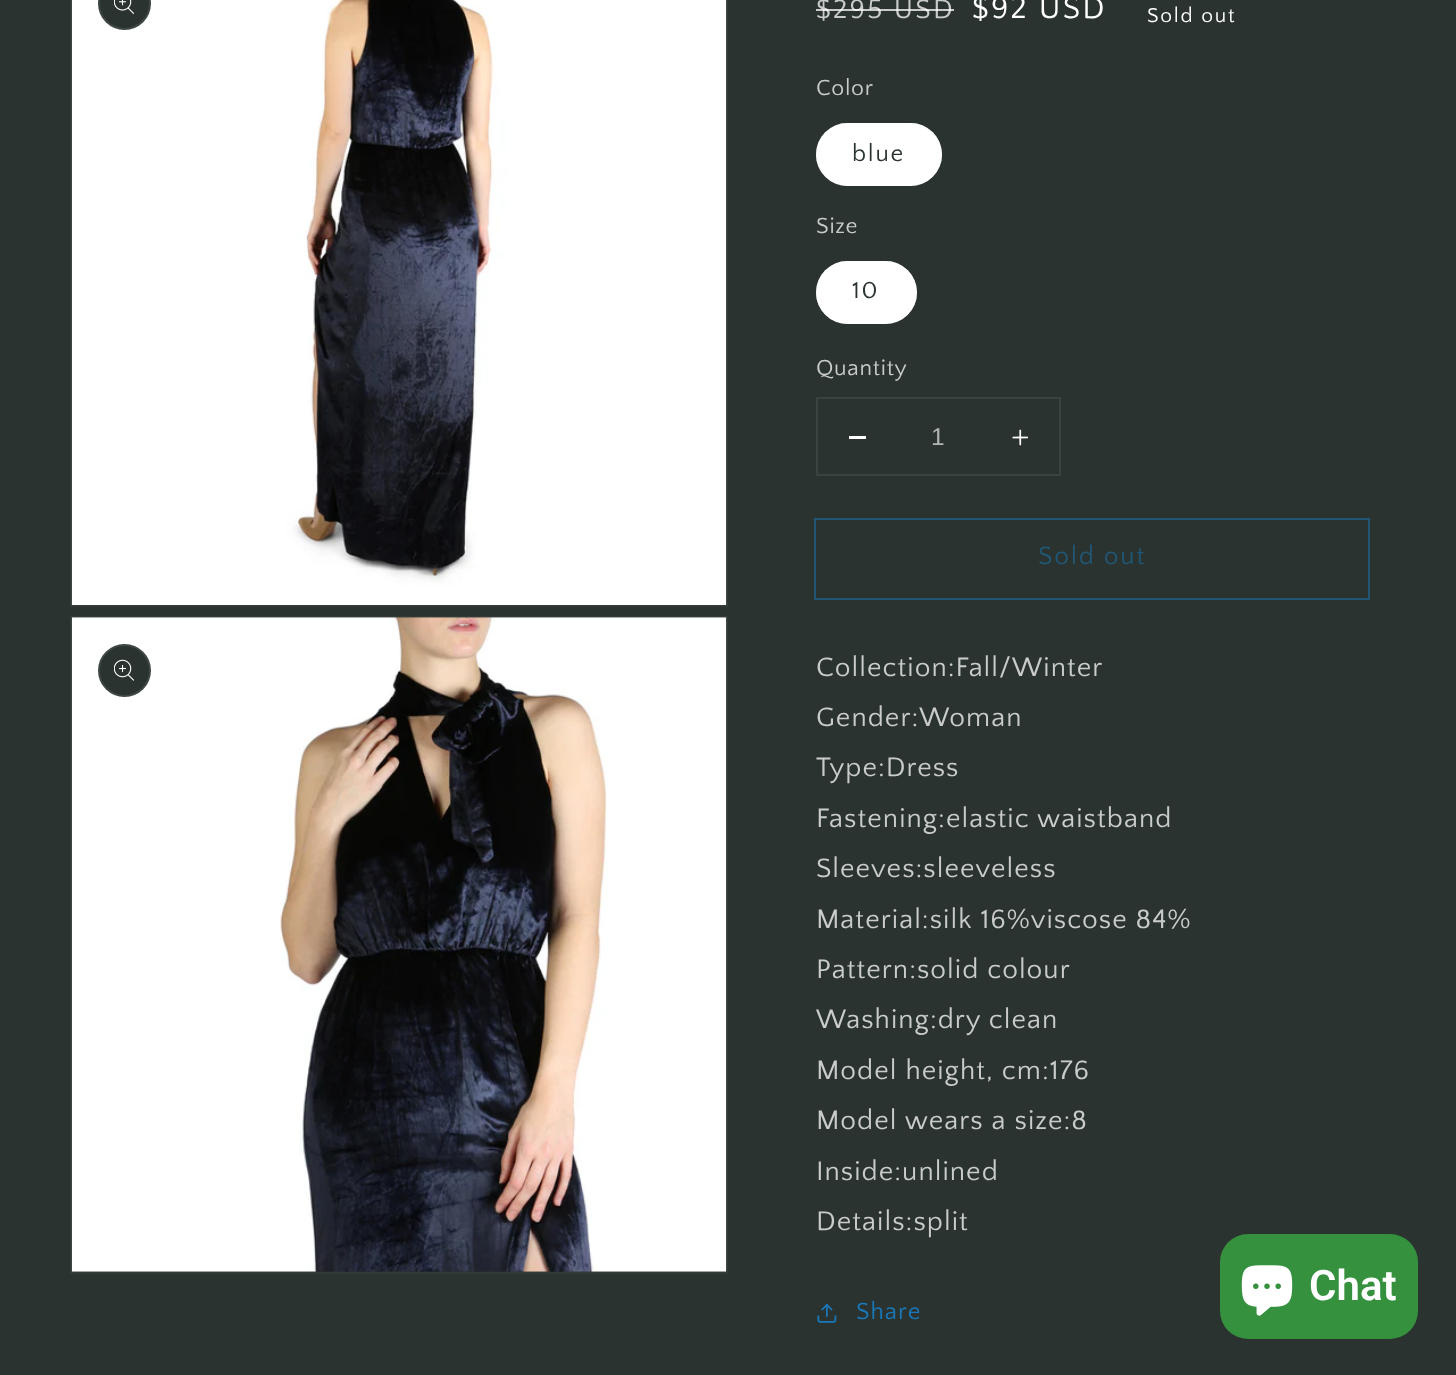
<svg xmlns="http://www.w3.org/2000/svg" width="1456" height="1375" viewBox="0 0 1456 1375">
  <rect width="100%" height="100%" fill="#2a332f"/>
  <path d="M71 -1h656v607H71z" fill="none" stroke="#333b37" stroke-width="2"/>
  <image x="71" y="0" width="656" height="605" href="img/2.png"/>
  <circle cx="124.5" cy="3.5" r="26.5" fill="#2a332f"/>
  <circle cx="124.5" cy="3.5" r="25.5" fill="none" stroke="#ffffff1a" stroke-width="2"/>
  <image x="114" y="0" width="20" height="14" href="img/1.png"/>
  <path d="M71 617h656v656H71z" fill="none" stroke="#333b37" stroke-width="2"/>
  <image x="71" y="617" width="656" height="655" href="img/3.png"/>
  <circle cx="124.5" cy="670.5" r="26.5" fill="#2a332f"/>
  <circle cx="124.5" cy="670.5" r="25.5" fill="none" stroke="#ffffff1a" stroke-width="2"/>
  <image x="114" y="659" width="20" height="22" href="img/4.png"/>
  <rect x="816" y="123" width="126" height="63" rx="31.5" fill="#fff"/>
  <rect x="817" y="124" width="124" height="61" rx="30.5" fill="none" stroke="#ffffff8c" stroke-width="2"/>
  <rect x="816" y="261" width="101" height="63" rx="31.5" fill="#fff"/>
  <rect x="817" y="262" width="99" height="61" rx="30.5" fill="none" stroke="#ffffff8c" stroke-width="2"/>
  <path d="M817 398h243v77H817z" fill="none" stroke="#3b4340" stroke-width="2"/>
  <path d="M849 436h17v3H849z" fill="#fff"/>
  <image x="1012" y="429" width="17" height="17" href="img/5.png"/>
  <path d="M815 519h554v80H815z" fill="none" stroke="#215674" stroke-width="2"/>
  <image x="817" y="1304" width="20" height="19" href="img/6.png"/>
  <rect x="1220" y="1234" width="198" height="105" rx="28" fill="#36913f"/>
  <image x="1241" y="1265" width="52" height="51" href="img/7.png"/>
  <text x="816" y="18" font-family="Quattrocento Sans" font-size="28" letter-spacing="2.25" fill="#cacccb">$295 USD</text>
  <path d="M816 9h138v2H816z" fill="#ffffffbf"/>
  <text x="972" y="18" font-family="Quattrocento Sans" font-size="31.5" letter-spacing="2.25" fill="#fff">$92 USD</text>
  <text x="1147" y="22" font-family="Quattrocento Sans" font-size="21" letter-spacing="1.75" fill="#fff">Sold out</text>
  <text x="816" y="95" font-family="Quattrocento Sans" font-size="23" letter-spacing="0.75" fill="#cacccb">Color</text>
  <text x="852" y="161" font-family="Quattrocento Sans" font-size="24.5" letter-spacing="1.75" fill="#2a332f">blue</text>
  <text x="816" y="233" font-family="Quattrocento Sans" font-size="23" letter-spacing="0.75" fill="#cacccb">Size</text>
  <text x="852" y="298" font-family="Quattrocento Sans" font-size="24.5" letter-spacing="1.75" fill="#2a332f">10</text>
  <text x="816" y="375" font-family="Quattrocento Sans" font-size="23" letter-spacing="0.75" fill="#cacccb">Quantity</text>
  <text x="931" y="445" font-family="Liberation Sans" font-size="24.5" fill="#b2b5b4">1</text>
  <text x="1038" y="564" font-family="Quattrocento Sans" font-size="26.25" letter-spacing="1.75" fill="#215674">Sold out</text>
  <g font-family="Quattrocento Sans" font-size="28" letter-spacing="1.05" fill="#cacccb">
    <text x="816" y="676">Collection:Fall/Winter</text>
    <text x="816" y="726">Gender:Woman</text>
    <text x="816" y="776">Type:Dress</text>
    <text x="816" y="827">Fastening:elastic waistband</text>
    <text x="816" y="877">Sleeves:sleeveless</text>
    <text x="816" y="928">Material:silk 16%viscose 84%</text>
    <text x="816" y="978">Pattern:solid colour</text>
    <text x="816" y="1028">Washing:dry clean</text>
    <text x="816" y="1079">Model height, cm:176</text>
    <text x="816" y="1129">Model wears a size:8</text>
    <text x="816" y="1180">Inside:unlined</text>
    <text x="816" y="1230">Details:split</text>
  </g>
  <text x="856" y="1319" font-family="Quattrocento Sans" font-size="24.5" letter-spacing="1.05" fill="#1878b9">Share</text>
  <text x="1309" y="1300" font-family="Roboto" font-size="42" font-weight="600" fill="#fff">Chat</text>
</svg>
